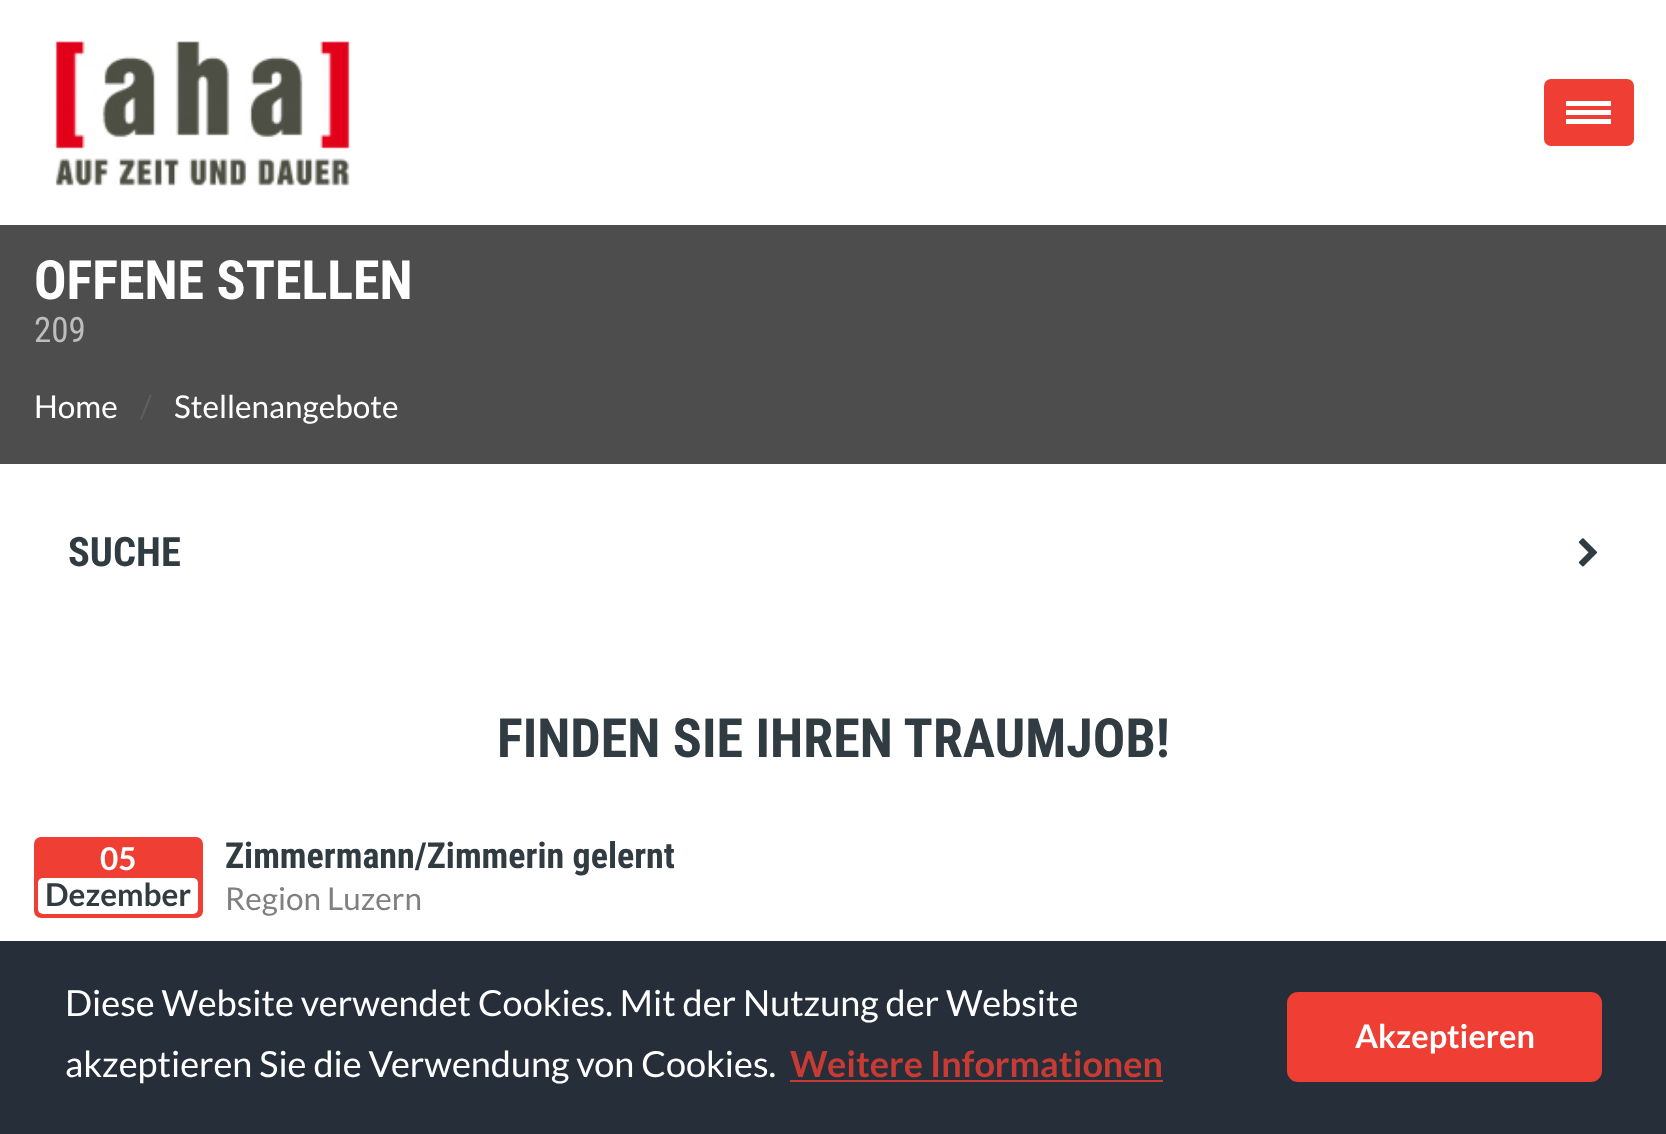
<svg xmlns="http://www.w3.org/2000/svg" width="1666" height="1134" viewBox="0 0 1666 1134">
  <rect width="100%" height="100%" fill="#fff"/>
  <image x="55" y="41" width="295" height="145" href="img/1.png"/>
  <rect x="1544" y="79" width="90" height="67" rx="7" fill="#ef3e33"/>
  <path d="M1566 101h45v5H1566z" fill="#fff"/>
  <path d="M1566 110h45v5H1566z" fill="#fff"/>
  <path d="M1566 119h45v5H1566z" fill="#fff"/>
  <path d="M0 225h1666v239H0z" fill="#4d4d4d"/>
  <image x="1578" y="538" width="19" height="29" href="img/2.png"/>
  <rect x="34" y="837" width="169" height="81" rx="7" fill="#ef3e33"/>
  <rect x="38" y="878" width="160" height="36" rx="5" fill="#fff"/>
  <path d="M0 941h1666v193H0z" fill="#252e39"/>
  <path d="M790 1080h373v2H790z" fill="#c73b34"/>
  <rect x="1287" y="992" width="315" height="90" rx="11" fill="#ef3e33"/>
  <text x="34" y="299" font-family="Roboto Condensed" font-size="54" font-weight="bold" fill="#fff">OFFENE STELLEN</text>
  <text x="34" y="342" font-family="Roboto Condensed" font-size="35" fill="#bdbdbd">209</text>
  <text x="34" y="418" font-family="Lato" font-size="31.5" fill="#fff">Home</text>
  <text x="140" y="418" font-family="Lato" font-size="31.5" fill="#5f5f5f">/</text>
  <text x="174" y="418" font-family="Lato" font-size="31.5" fill="#fff">Stellenangebote</text>
  <text x="68" y="566" font-family="Roboto Condensed" font-size="40.5" font-weight="bold" fill="#303c42">SUCHE</text>
  <text x="497" y="757" font-family="Roboto Condensed" font-size="54" font-weight="bold" fill="#303c42">FINDEN SIE IHREN TRAUMJOB!</text>
  <text x="100" y="870" font-family="Lato" font-size="31.5" font-weight="bold" fill="#fff">05</text>
  <text x="45" y="906" font-family="Lato" font-size="31.5" font-weight="bold" fill="#303c42">Dezember</text>
  <text x="225" y="868" font-family="Roboto Condensed" font-size="36" font-weight="bold" fill="#303c42">Zimmermann/Zimmerin gelernt</text>
  <text x="225" y="910" font-family="Lato" font-size="31.5" fill="#808080">Region Luzern</text>
  <g font-family="Lato" font-size="36" fill="#fff">
    <text x="65" y="1016">Diese Website verwendet Cookies. Mit der Nutzung der Website</text>
    <text x="65" y="1077">akzeptieren Sie die Verwendung von Cookies.</text>
  </g>
  <text x="790" y="1077" font-family="Lato" font-size="36" font-weight="bold" fill="#c73b34">Weitere Informationen</text>
  <text x="1355" y="1048" font-family="Lato" font-size="32.5" font-weight="bold" fill="#fff">Akzeptieren</text>
</svg>
